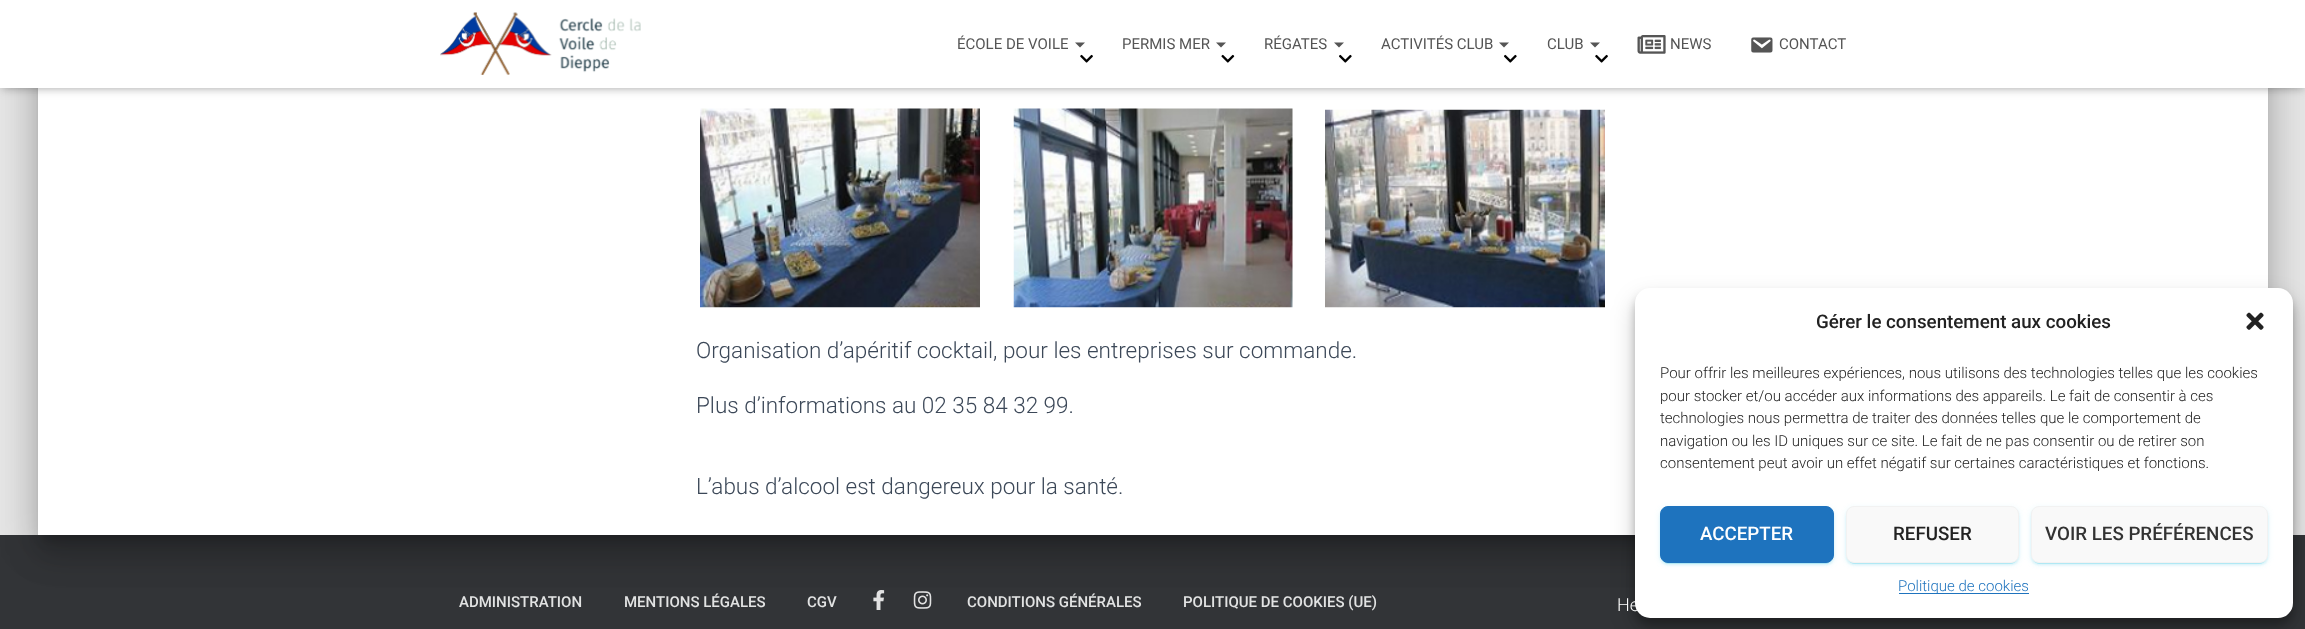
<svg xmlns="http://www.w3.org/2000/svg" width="2305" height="629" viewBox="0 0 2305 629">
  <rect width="100%" height="100%" fill="#e5e5e5"/>
  <path d="M0 535h2305v94H0z" fill="#323437"/>
  <rect x="44" y="-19" width="2217" height="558" rx="1" fill="#00000033" filter="blur(6px)"/>
  <rect x="31" y="-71" width="2243" height="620" rx="14" fill="#0000001f" filter="blur(19px)"/>
  <rect x="35" y="-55" width="2235" height="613" rx="10" fill="#00000024" filter="blur(15px)"/>
  <path d="M38 88h2230v447H38z" fill="#fff"/>
  <path d="M3 8h2300v82H3z" fill="#0000001a" filter="blur(3px)"/>
  <path d="M0 1h2305v88H0z" fill="#0000001f" filter="blur(6px)"/>
  <path d="M8 9h2290v72H8z" fill="#0000006b" filter="blur(6px)"/>
  <path d="M0 0h2305v88H0z" fill="#fff"/>
  <image x="440" y="12" width="201" height="63" href="img/1.png"/>
  <path d="M1075 42.5H1085L1080 47.5Z" fill="#555"/>
  <image x="1080" y="54" width="13" height="9" href="img/2.png"/>
  <path d="M1216 42.5H1226L1221 47.5Z" fill="#555"/>
  <image x="1221" y="54" width="14" height="9" href="img/3.png"/>
  <path d="M1334 42.5H1344L1339 47.5Z" fill="#555"/>
  <image x="1339" y="54" width="13" height="9" href="img/4.png"/>
  <path d="M1499 42.5H1509L1504 47.5Z" fill="#555"/>
  <image x="1504" y="54" width="13" height="9" href="img/4.png"/>
  <path d="M1590 42.5H1600L1595 47.5Z" fill="#555"/>
  <image x="1595" y="54" width="13" height="9" href="img/2.png"/>
  <image x="1637" y="35" width="29" height="19" href="img/5.png"/>
  <image x="1751" y="37" width="22" height="16" href="img/6.png"/>
  <image x="700" y="108" width="280" height="200" href="img/7.png"/>
  <image x="1013" y="108" width="280" height="200" href="img/8.png"/>
  <image x="1325" y="109" width="280" height="199" href="img/9.png"/>
  <image x="873" y="590" width="12" height="20" href="img/10.png"/>
  <image x="913" y="591" width="19" height="18" href="img/11.png"/>
  <rect x="1635" y="295" width="658" height="330" rx="15" fill="#0000003b" filter="blur(4px)"/>
  <rect x="1635" y="300" width="658" height="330" rx="15" fill="#00000030" filter="blur(12.5px)"/>
  <rect x="1635" y="288" width="658" height="330" rx="15" fill="#fff"/>
  <image x="2246" y="312" width="18" height="18" href="img/12.png"/>
  <rect x="1660" y="508" width="174" height="56" rx="8" fill="#1dbfe01f" filter="blur(3px)"/>
  <rect x="1663" y="513" width="168" height="51" rx="5" fill="#1dbfe033" filter="blur(0.5px)"/>
  <rect x="1660" y="509" width="174" height="56" rx="8" fill="#1dbfe024" filter="blur(1px)"/>
  <rect x="1660.5" y="506.5" width="173" height="56" rx="7.5" fill="#1e73be" stroke="#1e73be"/>
  <rect x="1846" y="508" width="173" height="56" rx="8" fill="#1dbfe01f" filter="blur(3px)"/>
  <rect x="1849" y="513" width="167" height="51" rx="5" fill="#1dbfe033" filter="blur(0.5px)"/>
  <rect x="1846" y="509" width="173" height="56" rx="8" fill="#1dbfe024" filter="blur(1px)"/>
  <rect x="1846.5" y="506.5" width="172" height="56" rx="7.5" fill="#f9f9f9" stroke="#f2f2f2"/>
  <rect x="2031" y="508" width="237" height="56" rx="8" fill="#1dbfe01f" filter="blur(3px)"/>
  <rect x="2034" y="513" width="231" height="51" rx="5" fill="#1dbfe033" filter="blur(0.5px)"/>
  <rect x="2031" y="509" width="237" height="56" rx="8" fill="#1dbfe024" filter="blur(1px)"/>
  <rect x="2031.5" y="506.5" width="236" height="56" rx="7.5" fill="#f9f9f9" stroke="#f2f2f2"/>
  <path d="M1899 593h130v1H1899z" fill="#1e73be"/>
  <g font-family="Roboto" font-size="15" fill="#555">
    <text x="957" y="49">ÉCOLE DE VOILE</text>
    <text x="1122" y="49">PERMIS MER</text>
    <text x="1264" y="49">RÉGATES</text>
    <text x="1381" y="49">ACTIVITÉS CLUB</text>
    <text x="1547" y="49">CLUB</text>
    <text x="1670" y="49">NEWS</text>
    <text x="1779" y="49">CONTACT</text>
  </g>
  <g font-family="Roboto" font-size="22.5" font-weight="300" fill="#3c4858">
    <text x="696" y="358">Organisation d’apéritif cocktail, pour les entreprises sur commande.</text>
    <text x="696" y="413">Plus d’informations au 02 35 84 32 99.</text>
    <text x="696" y="494">L’abus d’alcool est dangereux pour la santé.</text>
  </g>
  <g font-family="Roboto" font-size="15" font-weight="500" fill="#e2e3e3">
    <text x="459" y="607">ADMINISTRATION</text>
    <text x="624" y="607">MENTIONS LÉGALES</text>
    <text x="807" y="607">CGV</text>
    <text x="967" y="607">CONDITIONS GÉNÉRALES</text>
    <text x="1183" y="607">POLITIQUE DE COOKIES (UE)</text>
  </g>
  <text x="1617" y="611" font-family="Roboto" font-size="18" font-weight="300" fill="#fff">He</text>
  <text x="1816" y="328" font-family="Roboto" font-size="18.75" font-weight="500" fill="#222">Gérer le consentement aux cookies</text>
  <g font-family="Roboto" font-size="15" font-weight="300" fill="#222">
    <text x="1660" y="378">Pour offrir les meilleures expériences, nous utilisons des technologies telles que les cookies</text>
    <text x="1660" y="401">pour stocker et/ou accéder aux informations des appareils. Le fait de consentir à ces</text>
    <text x="1660" y="423">technologies nous permettra de traiter des données telles que le comportement de</text>
    <text x="1660" y="446">navigation ou les ID uniques sur ce site. Le fait de ne pas consentir ou de retirer son</text>
    <text x="1660" y="468">consentement peut avoir un effet négatif sur certaines caractéristiques et fonctions.</text>
  </g>
  <text x="1700" y="540" font-family="Roboto" font-size="18.75" font-weight="500" fill="#fff">ACCEPTER</text>
  <text x="1893" y="540" font-family="Roboto" font-size="18.75" font-weight="500" fill="#222">REFUSER</text>
  <text x="2045" y="540" font-family="Roboto" font-size="18.75" font-weight="500" fill="#333">VOIR LES PRÉFÉRENCES</text>
  <text x="1898" y="591" font-family="Roboto" font-size="15" font-weight="300" fill="#1e73be">Politique de cookies</text>
</svg>
